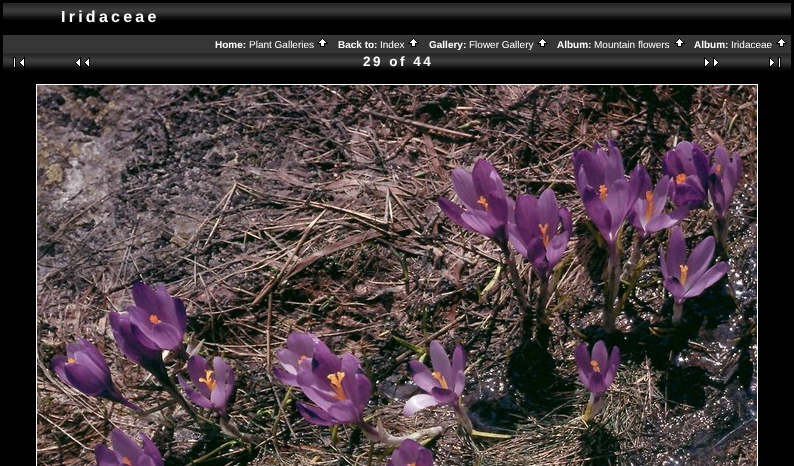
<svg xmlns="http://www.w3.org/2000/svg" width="794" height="466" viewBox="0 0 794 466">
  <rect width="100%" height="100%" fill="#000"/>
  <image x="3" y="3" width="788" height="17" href="img/1.png"/>
  <path d="M3 35h788v18H3z" fill="#363636"/>
  <image x="317" y="38" width="11" height="9" href="img/2.png"/>
  <image x="408" y="38" width="11" height="9" href="img/2.png"/>
  <image x="537" y="38" width="11" height="9" href="img/2.png"/>
  <image x="674" y="38" width="11" height="9" href="img/2.png"/>
  <image x="776" y="38" width="11" height="9" href="img/2.png"/>
  <image x="3" y="53" width="788" height="17" href="img/1.png"/>
  <image x="13" y="57" width="12" height="11" href="img/3.png"/>
  <image x="75" y="57" width="15" height="11" href="img/4.png"/>
  <image x="704" y="57" width="15" height="11" href="img/5.png"/>
  <image x="769" y="57" width="12" height="11" href="img/6.png"/>
  <path d="M36 84h722v1H36z" fill="#fff"/>
  <path d="M36 85h1v381H36z" fill="#fff"/>
  <image x="37" y="85" width="720" height="381" href="img/7.png"/>
  <path d="M757 85h1v381H757z" fill="#fff"/>
  <text x="61" y="22" font-family="Liberation Sans" font-size="16" font-weight="bold" letter-spacing="3.25" fill="#fff">Iridaceae</text>
  <text x="215" y="48" font-family="Liberation Sans" font-size="10" font-weight="bold" fill="#fff">Home:</text>
  <text x="249" y="48" font-family="Liberation Sans" font-size="10" fill="#fff">Plant Galleries</text>
  <text x="338" y="48" font-family="Liberation Sans" font-size="10" font-weight="bold" fill="#fff">Back to:</text>
  <text x="380" y="48" font-family="Liberation Sans" font-size="10" fill="#fff">Index</text>
  <text x="429" y="48" font-family="Liberation Sans" font-size="10" font-weight="bold" fill="#fff">Gallery:</text>
  <text x="469" y="48" font-family="Liberation Sans" font-size="10" fill="#fff">Flower Gallery</text>
  <text x="557" y="48" font-family="Liberation Sans" font-size="10" font-weight="bold" fill="#fff">Album:</text>
  <text x="594" y="48" font-family="Liberation Sans" font-size="10" fill="#fff">Mountain flowers</text>
  <text x="694" y="48" font-family="Liberation Sans" font-size="10" font-weight="bold" fill="#fff">Album:</text>
  <text x="731" y="48" font-family="Liberation Sans" font-size="10" fill="#fff">Iridaceae</text>
  <text x="363" y="66" font-family="Liberation Sans" font-size="13.5" font-weight="bold" letter-spacing="2.5" fill="#fff">29 of 44</text>
</svg>
